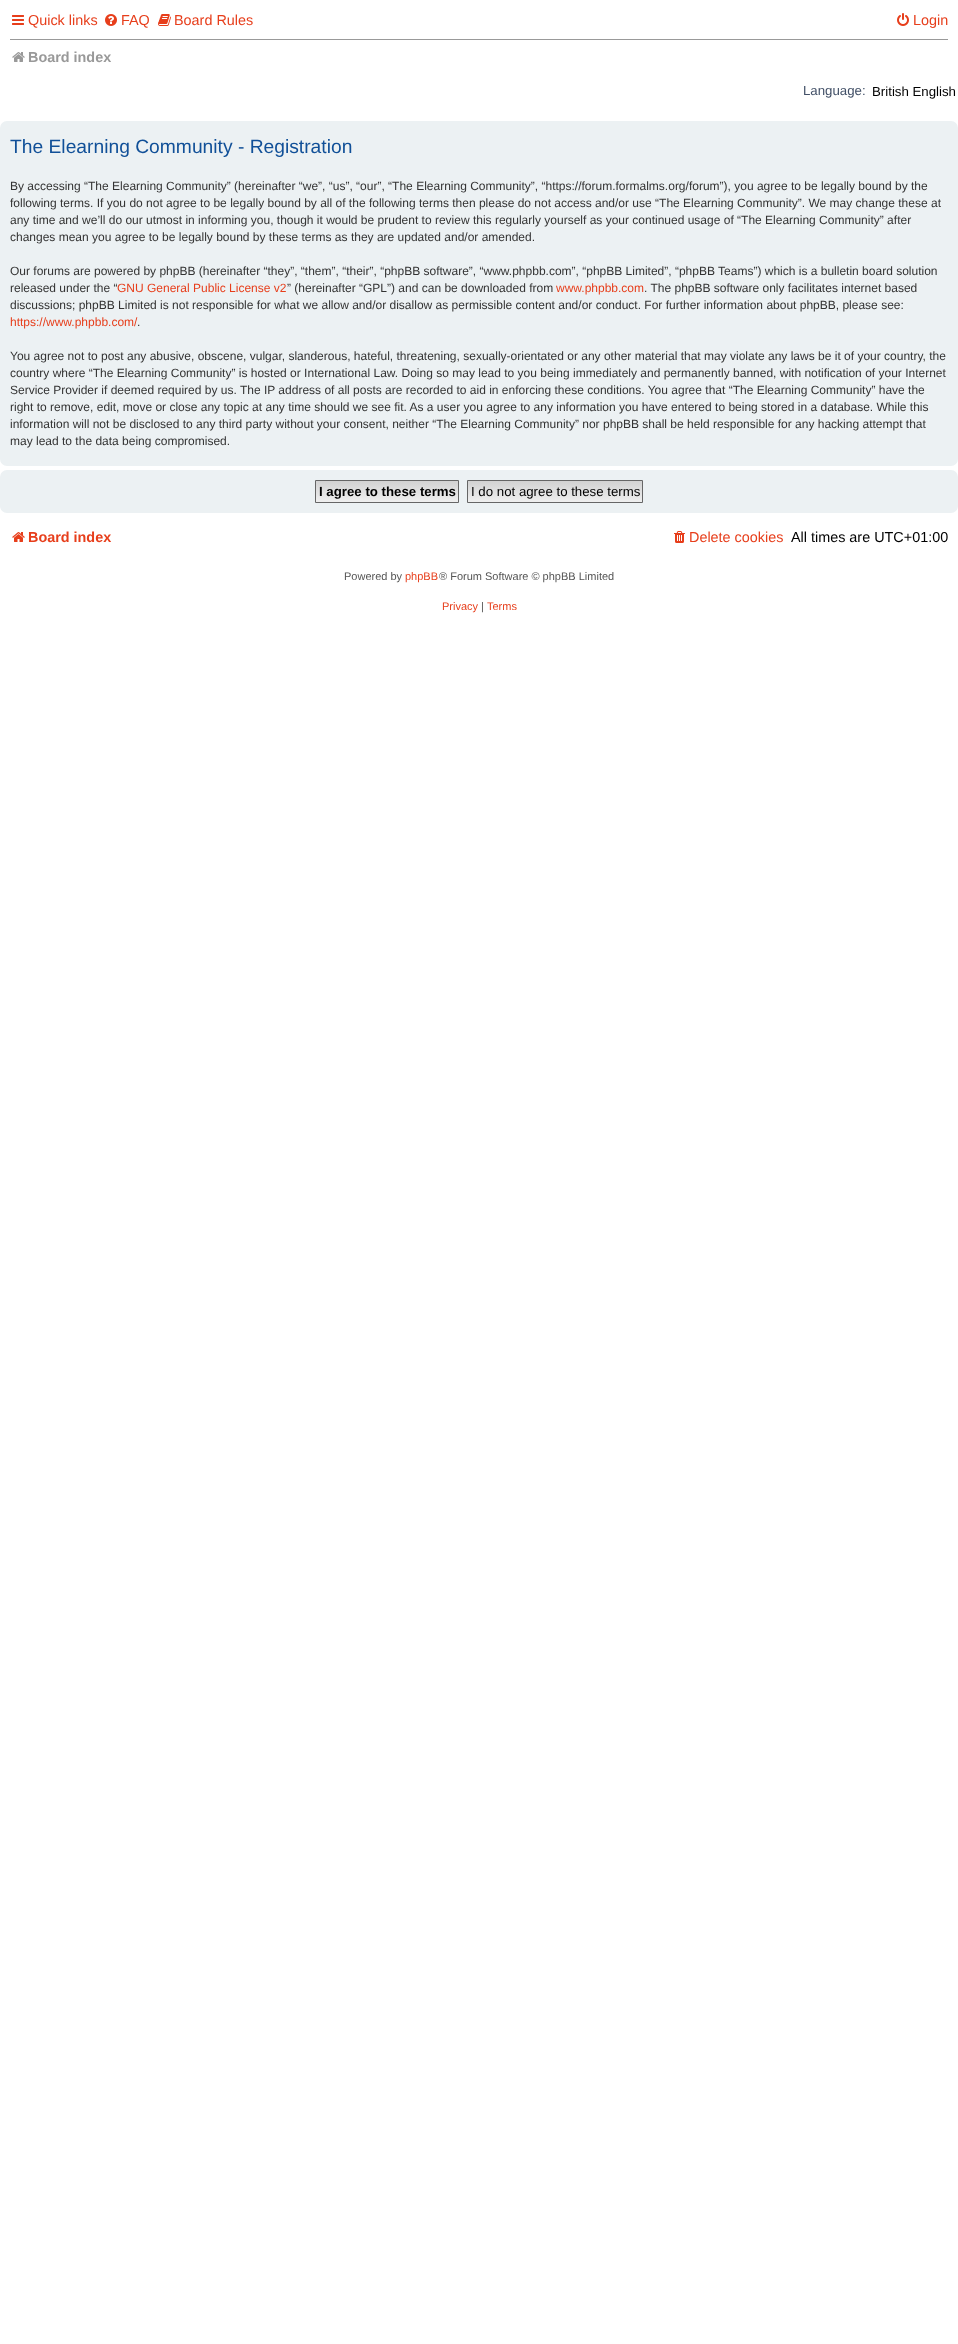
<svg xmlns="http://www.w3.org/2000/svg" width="958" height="2344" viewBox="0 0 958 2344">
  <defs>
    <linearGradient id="g1" gradientUnits="userSpaceOnUse" x1="387" y1="481" x2="387" y2="502"><stop offset="0" stop-color="#d2d2d2"/><stop offset="1" stop-color="#efefef"/></linearGradient>
    <linearGradient id="g2" gradientUnits="userSpaceOnUse" x1="555" y1="481" x2="555" y2="502"><stop offset="0" stop-color="#d2d2d2"/><stop offset="1" stop-color="#efefef"/></linearGradient>
  </defs>
  <rect width="100%" height="100%" fill="#fff"/>
  <image x="12" y="15" width="12" height="10" href="img/1.png"/>
  <image x="105" y="14" width="12" height="12" href="img/2.png"/>
  <image x="158" y="14" width="13" height="12" href="img/3.png"/>
  <image x="897" y="13" width="12" height="13" href="img/4.png"/>
  <path d="M10 39h938v1H10z" fill="#999"/>
  <image x="12" y="52" width="13" height="10" href="img/5.png"/>
  <rect y="121" width="958" height="345" rx="7" fill="#ecf1f3"/>
  <rect y="470" width="958" height="43" rx="7" fill="#ecf1f3"/>
  <path d="M316 481h142v21H316z" fill="url(#g1)"/>
  <path d="M315.5 480.5h143v22H315.5z" fill="none" stroke="#666"/>
  <path d="M468 481h174v21H468z" fill="url(#g2)"/>
  <path d="M467.5 480.5h175v22H467.5z" fill="none" stroke="#666"/>
  <image x="12" y="532" width="13" height="10" href="img/6.png"/>
  <image x="674" y="531" width="11" height="12" href="img/7.png"/>
  <g font-family="Liberation Sans" font-size="14.4" fill="#e73e1b">
    <text x="28" y="25">Quick links</text>
    <text x="121" y="25">FAQ</text>
    <text x="174" y="25">Board Rules</text>
    <text x="913" y="25">Login</text>
  </g>
  <text x="28" y="62" font-family="Liberation Sans" font-size="14.4" font-weight="bold" fill="#999">Board index</text>
  <text x="803" y="95" font-family="Liberation Sans" font-size="13.25" fill="#425067">Language:</text>
  <text x="872" y="96" font-family="Liberation Sans" font-size="13.25" fill="#000">British English</text>
  <text x="10" y="153" font-family="Liberation Sans" font-size="19.25" fill="#115098">The Elearning Community - Registration</text>
  <g font-family="Liberation Sans" font-size="12" fill="#333">
    <text x="10" y="190">By accessing “The Elearning Community” (hereinafter “we”, “us”, “our”, “The Elearning Community”, “https://forum.formalms.org/forum”), you agree to be legally bound by the</text>
    <text x="10" y="207">following terms. If you do not agree to be legally bound by all of the following terms then please do not access and/or use “The Elearning Community”. We may change these at</text>
    <text x="10" y="224">any time and we’ll do our utmost in informing you, though it would be prudent to review this regularly yourself as your continued usage of “The Elearning Community” after</text>
    <text x="10" y="241">changes mean you agree to be legally bound by these terms as they are updated and/or amended.</text>
    <text x="10" y="275">Our forums are powered by phpBB (hereinafter “they”, “them”, “their”, “phpBB software”, “www.phpbb.com”, “phpBB Limited”, “phpBB Teams”) which is a bulletin board solution</text>
    <text x="10" y="292">released under the “</text>
  </g>
  <text x="117" y="292" font-family="Liberation Sans" font-size="12" fill="#e73e1b">GNU General Public License v2</text>
  <text x="287" y="292" font-family="Liberation Sans" font-size="12" fill="#333">” (hereinafter “GPL”) and can be downloaded from</text>
  <text x="556" y="292" font-family="Liberation Sans" font-size="12" fill="#e73e1b">www.phpbb.com</text>
  <g font-family="Liberation Sans" font-size="12" fill="#333">
    <text x="644" y="292">. The phpBB software only facilitates internet based</text>
    <text x="10" y="309">discussions; phpBB Limited is not responsible for what we allow and/or disallow as permissible content and/or conduct. For further information about phpBB, please see:</text>
  </g>
  <text x="10" y="326" font-family="Liberation Sans" font-size="12" fill="#e73e1b">https://www.phpbb.com/</text>
  <g font-family="Liberation Sans" font-size="12" fill="#333">
    <text x="137" y="326">.</text>
    <text x="10" y="360">You agree not to post any abusive, obscene, vulgar, slanderous, hateful, threatening, sexually-orientated or any other material that may violate any laws be it of your country, the</text>
    <text x="10" y="377">country where “The Elearning Community” is hosted or International Law. Doing so may lead to you being immediately and permanently banned, with notification of your Internet</text>
    <text x="10" y="394">Service Provider if deemed required by us. The IP address of all posts are recorded to aid in enforcing these conditions. You agree that “The Elearning Community” have the</text>
    <text x="10" y="411">right to remove, edit, move or close any topic at any time should we see fit. As a user you agree to any information you have entered to being stored in a database. While this</text>
    <text x="10" y="428">information will not be disclosed to any third party without your consent, neither “The Elearning Community” nor phpBB shall be held responsible for any hacking attempt that</text>
    <text x="10" y="445">may lead to the data being compromised.</text>
  </g>
  <text x="319" y="496" font-family="Liberation Sans" font-size="13.25" font-weight="bold" fill="#000">I agree to these terms</text>
  <text x="471" y="496" font-family="Liberation Sans" font-size="13.25" fill="#000">I do not agree to these terms</text>
  <text x="28" y="542" font-family="Liberation Sans" font-size="14.4" font-weight="bold" fill="#e73e1b">Board index</text>
  <text x="689" y="542" font-family="Liberation Sans" font-size="14.4" fill="#e73e1b">Delete cookies</text>
  <text x="791" y="542" font-family="Liberation Sans" font-size="14.4" fill="#000">All times are UTC+01:00</text>
  <text x="344" y="580" font-family="Liberation Sans" font-size="11" fill="#555">Powered by</text>
  <text x="405" y="580" font-family="Liberation Sans" font-size="11" fill="#e73e1b">phpBB</text>
  <text x="439" y="580" font-family="Liberation Sans" font-size="11" fill="#555">® Forum Software © phpBB Limited</text>
  <text x="442" y="610" font-family="Liberation Sans" font-size="11" fill="#e73e1b">Privacy</text>
  <text x="481" y="610" font-family="Liberation Sans" font-size="11" fill="#555">|</text>
  <text x="487" y="610" font-family="Liberation Sans" font-size="11" fill="#e73e1b">Terms</text>
</svg>
